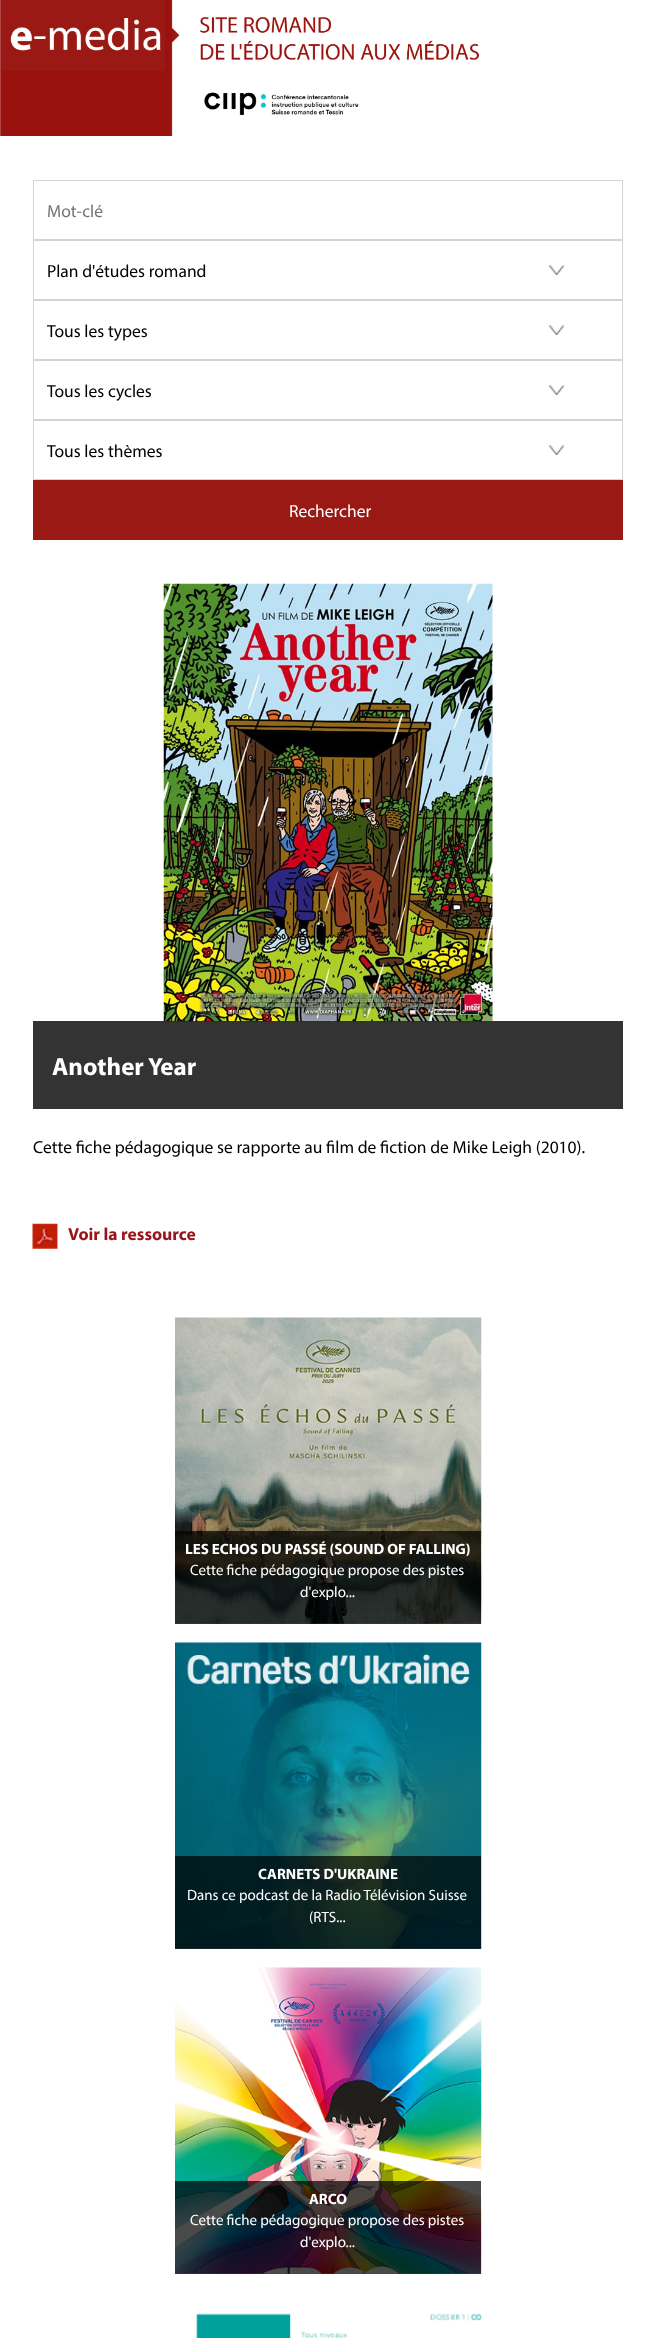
<svg xmlns="http://www.w3.org/2000/svg" width="654" height="2338" viewBox="0 0 654 2338">
  <rect width="100%" height="100%" fill="#fff"/>
  <image x="0" y="0" width="480" height="136" href="img/1.png"/>
  <path d="M33.5 180.5h589v59H33.5z" fill="none" stroke="#d3d3d3"/>
  <image x="548" y="265" width="16" height="10" href="img/2.png"/>
  <path d="M33.5 240.5h589v59H33.5z" fill="none" stroke="#d3d3d3"/>
  <image x="548" y="325" width="16" height="10" href="img/2.png"/>
  <path d="M33.5 300.5h589v59H33.5z" fill="none" stroke="#d3d3d3"/>
  <image x="548" y="385" width="16" height="10" href="img/2.png"/>
  <path d="M33.5 360.5h589v59H33.5z" fill="none" stroke="#d3d3d3"/>
  <image x="548" y="445" width="16" height="10" href="img/2.png"/>
  <path d="M33.5 420.5h589v59H33.5z" fill="none" stroke="#d3d3d3"/>
  <path d="M33 480h590v60H33z" fill="#9a1915"/>
  <image x="163" y="583" width="330" height="439" href="img/3.png"/>
  <path d="M33 1021h590v88H33z" fill="#000000cc"/>
  <image x="32" y="1223" width="26" height="26" href="img/4.png"/>
  <image x="175" y="1317" width="307" height="307" href="img/5.png"/>
  <path d="M175 1531h306v93H175z" fill="#000000b5"/>
  <image x="175" y="1642" width="307" height="307" href="img/6.png"/>
  <path d="M175 1856h306v93H175z" fill="#000000b5"/>
  <image x="175" y="1967" width="307" height="307" href="img/7.png"/>
  <path d="M175 2181h306v93H175z" fill="#000000b5"/>
  <image x="196" y="2313" width="286" height="25" href="img/8.png"/>
  <text x="47" y="217" font-family="Myriad" font-size="17.5" fill="#757575">Mot-clé</text>
  <g font-family="Myriad" font-size="17.5" fill="#000">
    <text x="47" y="277">Plan d'études romand</text>
    <text x="47" y="337">Tous les types</text>
    <text x="47" y="397">Tous les cycles</text>
    <text x="47" y="457">Tous les thèmes</text>
  </g>
  <text x="289" y="517" font-family="Myriad" font-size="17.5" fill="#fff">Rechercher</text>
  <text x="52" y="1075" font-family="Myriad" font-size="25" font-weight="bold" fill="#fff">Another Year</text>
  <text x="33" y="1153" font-family="Myriad" font-size="17.5" fill="#000">Cette fiche pédagogique se rapporte au film de fiction de Mike Leigh (2010).</text>
  <text x="68" y="1240" font-family="Myriad" font-size="17.5" font-weight="bold" fill="#9a141b">Voir la ressource</text>
  <text x="185" y="1554" font-family="Myriad" font-size="15" font-weight="bold" fill="#fff">LES ECHOS DU PASSÉ (SOUND OF FALLING)</text>
  <g font-family="Myriad" font-size="15" fill="#fff">
    <text x="190" y="1575">Cette fiche pédagogique propose des pistes</text>
    <text x="300" y="1597">d'explo...</text>
  </g>
  <text x="258" y="1879" font-family="Myriad" font-size="15" font-weight="bold" fill="#fff">CARNETS D'UKRAINE</text>
  <g font-family="Myriad" font-size="15" fill="#fff">
    <text x="187" y="1900">Dans ce podcast de la Radio Télévision Suisse</text>
    <text x="309" y="1922">(RTS...</text>
  </g>
  <text x="309" y="2204" font-family="Myriad" font-size="15" font-weight="bold" fill="#fff">ARCO</text>
  <g font-family="Myriad" font-size="15" fill="#fff">
    <text x="190" y="2225">Cette fiche pédagogique propose des pistes</text>
    <text x="300" y="2247">d'explo...</text>
  </g>
</svg>
